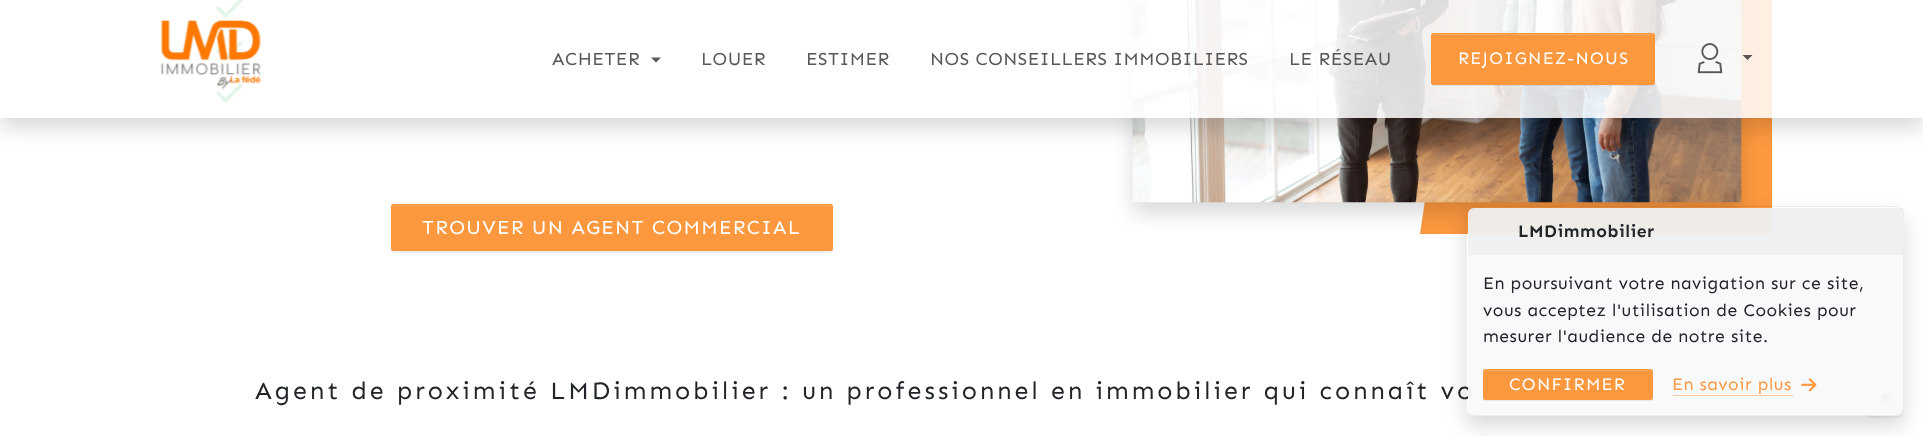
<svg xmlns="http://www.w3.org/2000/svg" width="1923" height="436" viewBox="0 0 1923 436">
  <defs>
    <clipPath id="clip1"><path d="M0 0H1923V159H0ZM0 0H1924V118H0Z" clip-rule="evenodd"/></clipPath>
    <clipPath id="clip2"><path d="M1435 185H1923V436H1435ZM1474 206H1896C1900.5 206 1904 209.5 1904 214V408C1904 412.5 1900.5 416 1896 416H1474C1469.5 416 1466 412.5 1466 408V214C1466 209.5 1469.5 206 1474 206Z" clip-rule="evenodd"/></clipPath>
  </defs>
  <rect width="100%" height="100%" fill="#fff"/>
  <image x="216" y="0" width="27" height="18" href="img/3.png"/>
  <image x="216" y="41" width="27" height="19" href="img/4.png"/>
  <image x="216" y="83" width="27" height="20" href="img/5.png"/>
  <path d="M1490-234H1766C1768-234 1771-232 1772-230V230C1770 232 1768 234 1765 234H1420Z" fill="#fd983f"/>
  <path d="M1133 -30h608v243H1133z" fill="#00000026" filter="blur(10px)"/>
  <image x="1132" y="0" width="610" height="203" href="img/6.png"/>
  <g clip-path="url(#clip1)">
    <path d="M0 10h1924v118H0z" fill="#00000026" filter="blur(10px)"/>
  </g>
  <path d="M0 0h1923v118H0z" fill="#ffffffd9"/>
  <image x="160" y="20" width="102" height="70" href="img/1.png"/>
  <path d="M651 57.5H661L656 62.5Z" fill="#595959"/>
  <rect x="1431" y="34" width="224" height="52" rx="3" fill="#00000012" filter="blur(0.5px)"/>
  <rect x="1431" y="33" width="224" height="52" rx="3" fill="#fd983f"/>
  <path d="M1434 35H1652C1653 35 1654 36 1654 37V36C1654 35 1653 34 1652 34H1435C1434 34 1433 35 1433 35Z" fill="#fda75c"/>
  <rect x="1431.5" y="33.5" width="223" height="51" rx="2.5" fill="none" stroke="#fd983f"/>
  <image x="1697" y="43" width="26" height="31" href="img/2.png"/>
  <path d="M1742.5 55H1752.5L1747.5 60Z" fill="#59544f"/>
  <rect x="391" y="205" width="442" height="48" rx="3" fill="#00000012" filter="blur(0.5px)"/>
  <rect x="391" y="204" width="442" height="47" rx="3" fill="#fd983f"/>
  <path d="M394 206H830L831 208C831 207 831 205 829 205H395L393 206Z" fill="#fda75c"/>
  <rect x="391.5" y="204.5" width="441" height="46" rx="2.5" fill="none" stroke="#fd983f"/>
  <rect x="1865" y="379" width="39" height="39" rx="8" fill="#40404012" filter="blur(0.5px)"/>
  <rect x="1865" y="378" width="39" height="38" rx="8" fill="#fff"/>
  <image x="1880" y="392" width="10" height="10" href="img/7.png"/>
  <g clip-path="url(#clip2)">
    <rect x="1466" y="216" width="438" height="210" rx="8" fill="#00000026" filter="blur(10px)"/>
  </g>
  <g font-family="Sen" font-size="18.5" letter-spacing="0.5" fill="#585858">
    <text x="552" y="65">ACHETER</text>
    <text x="701" y="65">LOUER</text>
    <text x="806" y="65">ESTIMER</text>
    <text x="930" y="65">NOS CONSEILLERS IMMOBILIERS</text>
    <text x="1289" y="65">LE RÉSEAU</text>
  </g>
  <text x="1458" y="64" font-family="Sen" font-size="17.5" letter-spacing="1.3" fill="#fff">REJOIGNEZ-NOUS</text>
  <text x="422" y="234" font-family="Sen" font-size="20" letter-spacing="1.3" fill="#fff">TROUVER UN AGENT COMMERCIAL</text>
  <text x="255" y="399" font-family="Sen" font-size="25" letter-spacing="3" fill="#212529">Agent de proximité LMDimmobilier : un professionnel en immobilier qui connaît vo</text>
  <rect x="1468" y="208" width="435" height="207" rx="6" fill="#f8f9faf2"/>
  <rect x="1466.5" y="206.5" width="437" height="209" rx="7.5" fill="none" stroke="#00000012"/>
  <path d="M1468 208h435v46H1468z" fill="#4545450d"/>
  <path d="M1468 254h435v1H1468z" fill="#eff0f1"/>
  <text x="1518" y="237" font-family="Sen" font-size="17.5" font-weight="bold" letter-spacing="0.5" fill="#212529">LMDimmobilier</text>
  <g font-family="Sen" font-size="17.5" letter-spacing="0.5" fill="#212529">
    <text x="1483" y="289">En poursuivant votre navigation sur ce site,</text>
    <text x="1483" y="316">vous acceptez l'utilisation de Cookies pour</text>
    <text x="1483" y="342">mesurer l'audience de notre site.</text>
  </g>
  <rect x="1483" y="370" width="170" height="31" rx="3" fill="#00000012" filter="blur(0.5px)"/>
  <rect x="1483" y="369" width="170" height="31" rx="3" fill="#fd983f"/>
  <path d="M1486 371H1650L1651 373C1651 372 1651 370 1649 370H1486C1484 370 1484 372 1484 373C1484 372 1485 371 1486 371Z" fill="#fda75c"/>
  <rect x="1483.5" y="369.5" width="169" height="30" rx="2.5" fill="none" stroke="#fd983f"/>
  <text x="1509" y="390" font-family="Sen" font-size="17.5" letter-spacing="1.3" fill="#fff">CONFIRMER</text>
  <text x="1672" y="390" font-family="Sen" font-size="17.5" letter-spacing="0.5" fill="#fd9840">En savoir plus</text>
  <path d="M1673 395h120v1H1673z" fill="#fbc99d"/>
  <image x="1801" y="378" width="16" height="14" href="img/8.png"/>
</svg>
